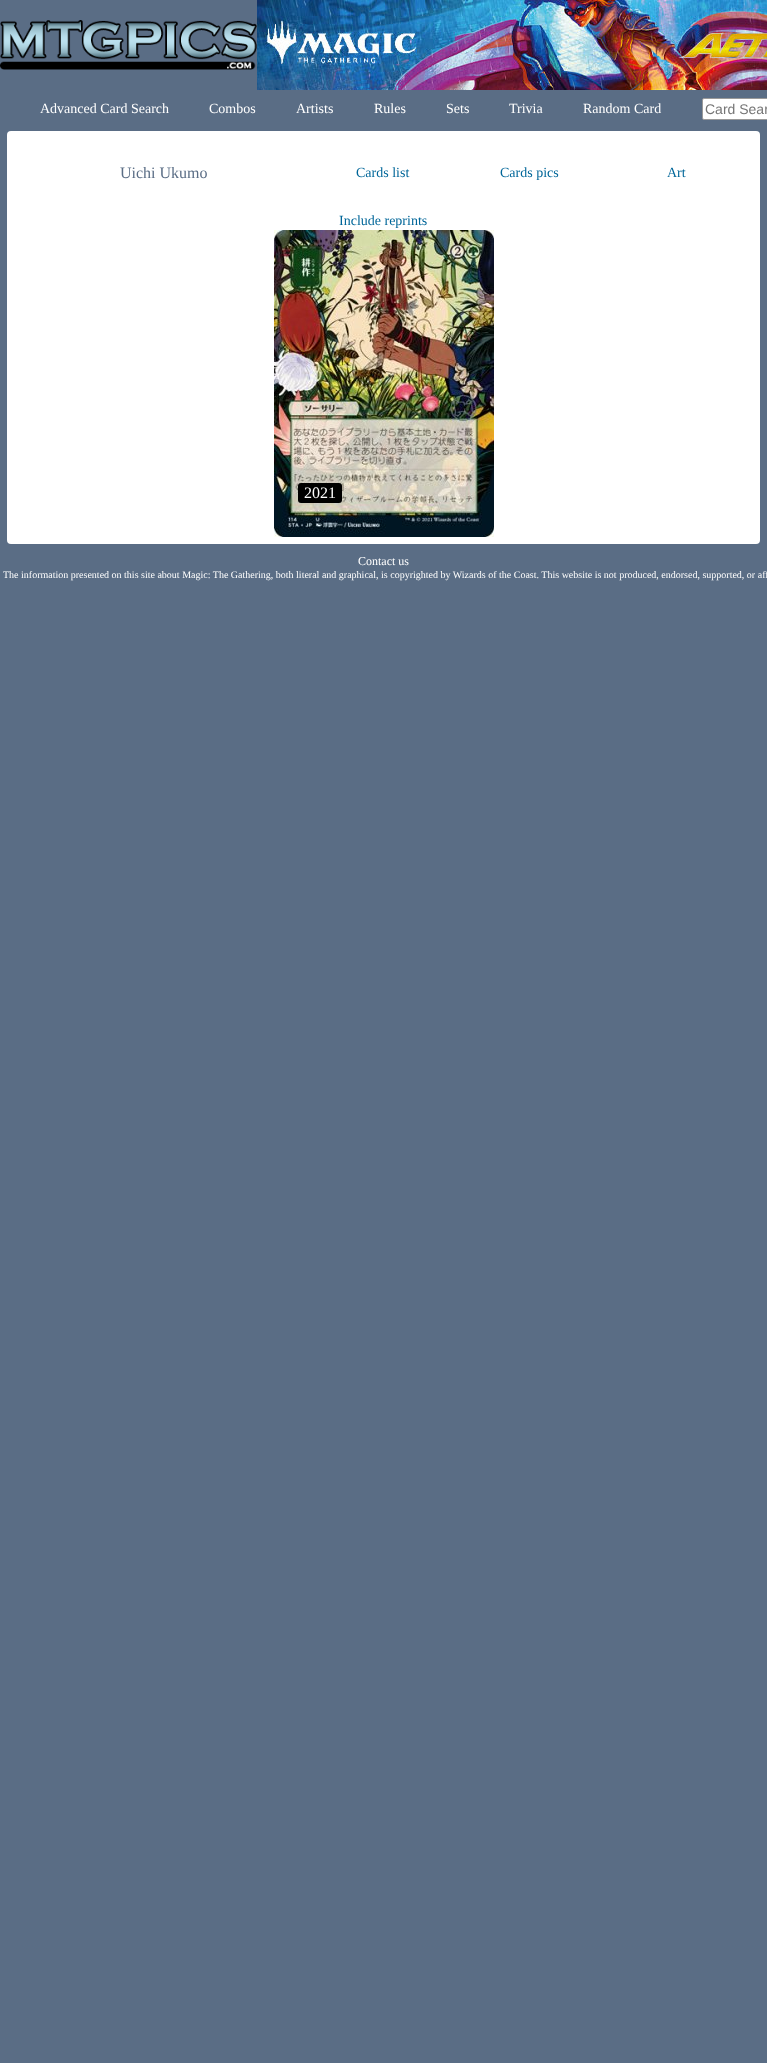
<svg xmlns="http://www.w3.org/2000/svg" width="767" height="2063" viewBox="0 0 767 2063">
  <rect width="100%" height="100%" fill="#5a6d85"/>
  <image x="0" y="20" width="257" height="50" href="img/1.png"/>
  <image x="257" y="0" width="510" height="90" href="img/2.png"/>
  <rect x="702.5" y="98.5" width="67" height="21" rx="1.5" fill="#fff" stroke="#999"/>
  <rect x="7" y="131" width="753" height="413" rx="4" fill="#fff"/>
  <image x="274" y="230" width="220" height="307" href="img/3.png"/>
  <rect x="298" y="483" width="44" height="20" rx="3" fill="#000"/>
  <g font-family="Liberation Serif" font-size="14" fill="#fff">
    <text x="40" y="113">Advanced Card Search</text>
    <text x="209" y="113">Combos</text>
    <text x="296" y="113">Artists</text>
    <text x="374" y="113">Rules</text>
    <text x="446" y="113">Sets</text>
    <text x="509" y="113">Trivia</text>
    <text x="583" y="113">Random Card</text>
  </g>
  <text x="705" y="114" font-family="Liberation Sans" font-size="14" fill="#757575">Card Sear</text>
  <text x="120" y="178" font-family="Liberation Serif" font-size="16" fill="#5a6d85">Uichi Ukumo</text>
  <g font-family="Liberation Serif" font-size="14" fill="#069">
    <text x="356" y="177">Cards list</text>
    <text x="500" y="177">Cards pics</text>
    <text x="667" y="177">Art</text>
    <text x="339" y="225">Include reprints</text>
  </g>
  <text x="304" y="498" font-family="Liberation Serif" font-size="16" fill="#fff">2021</text>
  <text x="358" y="565" font-family="Liberation Serif" font-size="12" fill="#fff">Contact us</text>
  <text x="3" y="578" font-family="Liberation Serif" font-size="10" fill="#fff">The information presented on this site about Magic: The Gathering, both literal and graphical, is copyrighted by Wizards of the Coast. This website is not produced, endorsed, supported, or aff</text>
</svg>
